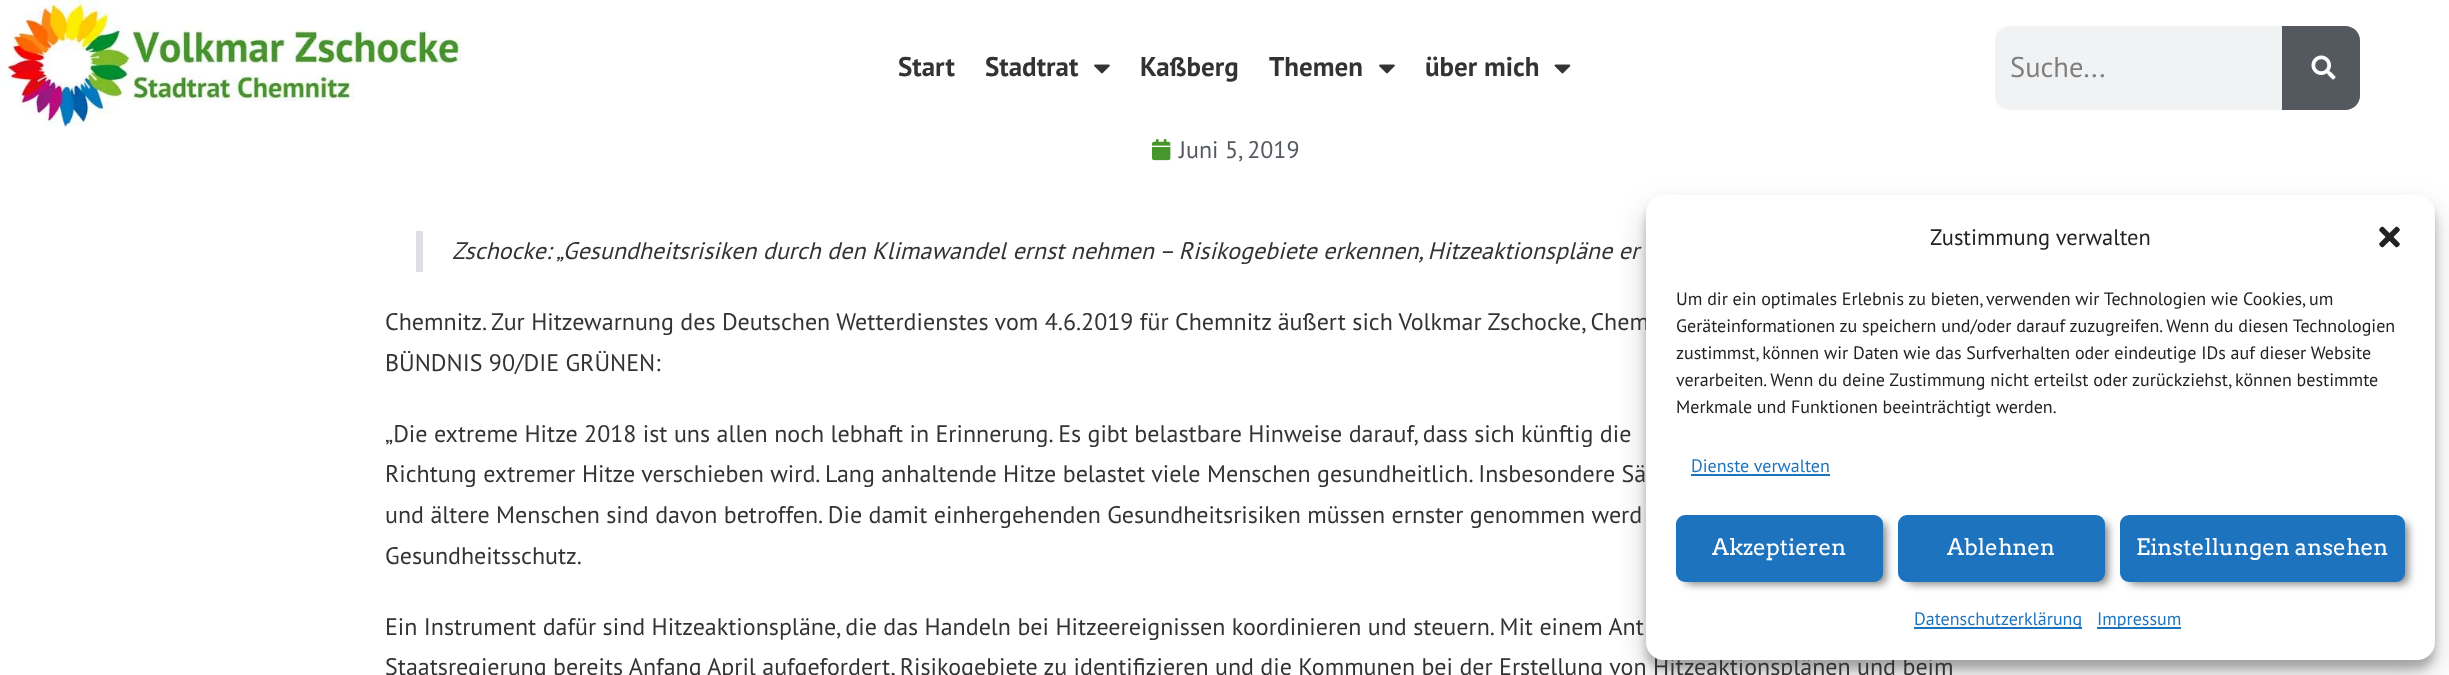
<svg xmlns="http://www.w3.org/2000/svg" width="2449" height="675" viewBox="0 0 2449 675">
  <defs>
    <clipPath id="clip1"><rect x="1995" y="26" width="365" height="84" rx="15"/></clipPath>
  </defs>
  <rect width="100%" height="100%" fill="#fff"/>
  <image x="0" y="0" width="462" height="127" href="img/1.png"/>
  <image x="1094" y="64" width="16" height="10" href="img/2.png"/>
  <image x="1379" y="64" width="16" height="10" href="img/2.png"/>
  <image x="1554" y="64" width="17" height="10" href="img/3.png"/>
  <rect x="1995" y="26" width="365" height="84" rx="15" fill="#f1f2f3"/>
  <g clip-path="url(#clip1)">
    <path d="M2291 33h72v78H2291z" fill="#00000080" filter="blur(4px)"/>
  </g>
  <path d="M2282 26H2345C2353.5 26 2360 32.5 2360 41V95C2360 103.5 2353.5 110 2345 110H2282Z" fill="#54595f"/>
  <image x="2311" y="55" width="25" height="25" href="img/4.png"/>
  <image x="1152" y="139" width="19" height="22" href="img/5.png"/>
  <path d="M416 231h7v41H416z" fill="#dedee5"/>
  <rect x="1646" y="204" width="789" height="465" rx="18" fill="#0000003b" filter="blur(4.5px)"/>
  <rect x="1646" y="210" width="789" height="465" rx="18" fill="#00000030" filter="blur(15px)"/>
  <g font-family="PT Sans" font-size="27" font-weight="bold" fill="#333">
    <text x="898" y="76">Start</text>
    <text x="985" y="76">Stadtrat</text>
    <text x="1140" y="76">Kaßberg</text>
    <text x="1269" y="76">Themen</text>
    <text x="1425" y="76">über mich</text>
  </g>
  <text x="2010" y="77" font-family="PT Sans" font-size="28.5" fill="#7f7f80">Suche...</text>
  <text x="1179" y="158" font-family="PT Sans" font-size="24" fill="#54595f">Juni 5, 2019</text>
  <g font-family="PT Sans" font-size="24" font-style="italic" fill="#333">
    <text x="452" y="259">Zschocke:</text>
    <text x="556" y="259">„Gesundheitsrisiken durch den Klimawandel ernst nehmen – Risikogebiete erkennen, Hitzeaktionspläne er</text>
  </g>
  <g font-family="PT Sans" font-size="24" fill="#333">
    <text x="385" y="330">Chemnitz. Zur Hitzewarnung des Deutschen Wetterdienstes vom 4.6.2019 für Chemnitz äußert sich Volkmar Zschocke, Chem</text>
    <text x="385" y="371">BÜNDNIS 90/DIE GRÜNEN:</text>
    <text x="385" y="442">„Die extreme Hitze 2018 ist uns allen noch lebhaft in Erinnerung. Es gibt belastbare Hinweise darauf, dass sich künftig die</text>
    <text x="385" y="482">Richtung extremer Hitze verschieben wird. Lang anhaltende Hitze belastet viele Menschen gesundheitlich. Insbesondere Sä</text>
    <text x="385" y="523">und ältere Menschen sind davon betroffen. Die damit einhergehenden Gesundheitsrisiken müssen ernster genommen werd</text>
    <text x="385" y="564">Gesundheitsschutz.</text>
    <text x="385" y="635">Ein Instrument dafür sind Hitzeaktionspläne, die das Handeln bei Hitzeereignissen koordinieren und steuern. Mit einem Ant</text>
    <text x="385" y="675">Staatsregierung bereits Anfang April aufgefordert, Risikogebiete zu identifizieren und die Kommunen bei der Erstellung von Hitzeaktionsplänen und beim</text>
  </g>
  <rect x="1646" y="195" width="789" height="465" rx="18" fill="#fff"/>
  <text x="1930" y="245" font-family="PT Sans" font-size="22.5" fill="#222">Zustimmung verwalten</text>
  <image x="2379" y="226" width="21" height="22" href="img/6.png"/>
  <g font-family="PT Sans" font-size="18" fill="#222">
    <text x="1676" y="305">Um dir ein optimales Erlebnis zu bieten, verwenden wir Technologien wie Cookies, um</text>
    <text x="1676" y="332">Geräteinformationen zu speichern und/oder darauf zuzugreifen. Wenn du diesen Technologien</text>
    <text x="1676" y="359">zustimmst, können wir Daten wie das Surfverhalten oder eindeutige IDs auf dieser Website</text>
    <text x="1676" y="386">verarbeiten. Wenn du deine Zustimmung nicht erteilst oder zurückziehst, können bestimmte</text>
    <text x="1676" y="413">Merkmale und Funktionen beeinträchtigt werden.</text>
  </g>
  <text x="1691" y="472" font-family="PT Sans" font-size="18" fill="#1e73be">Dienste verwalten</text>
  <path d="M1691 474h139v2H1691z" fill="#1e73be"/>
  <rect x="1685" y="522" width="201" height="62" rx="6" fill="#00000080" filter="blur(4px)"/>
  <rect x="1677" y="516" width="205" height="65" rx="8" fill="#1e73be" stroke="#1e73be" stroke-width="2"/>
  <text x="1712" y="555" font-family="Arvo" font-size="22.5" fill="#fff">Akzeptieren</text>
  <rect x="1907" y="522" width="201" height="62" rx="6" fill="#00000080" filter="blur(4px)"/>
  <rect x="1899" y="516" width="205" height="65" rx="8" fill="#1e73be" stroke="#1e73be" stroke-width="2"/>
  <text x="1947" y="555" font-family="Arvo" font-size="22.5" fill="#fff">Ablehnen</text>
  <rect x="2129" y="522" width="279" height="62" rx="6" fill="#00000080" filter="blur(4px)"/>
  <rect x="2121" y="516" width="283" height="65" rx="8" fill="#1e73be" stroke="#1e73be" stroke-width="2"/>
  <text x="2136" y="555" font-family="Arvo" font-size="22.5" fill="#fff">Einstellungen ansehen</text>
  <path d="M1914 627h168v2H1914z" fill="#1e73be"/>
  <text x="1914" y="625" font-family="PT Sans" font-size="18" fill="#1e73be">Datenschutzerklärung</text>
  <path d="M2097 627h84v2H2097z" fill="#1e73be"/>
  <text x="2097" y="625" font-family="PT Sans" font-size="18" fill="#1e73be">Impressum</text>
</svg>
